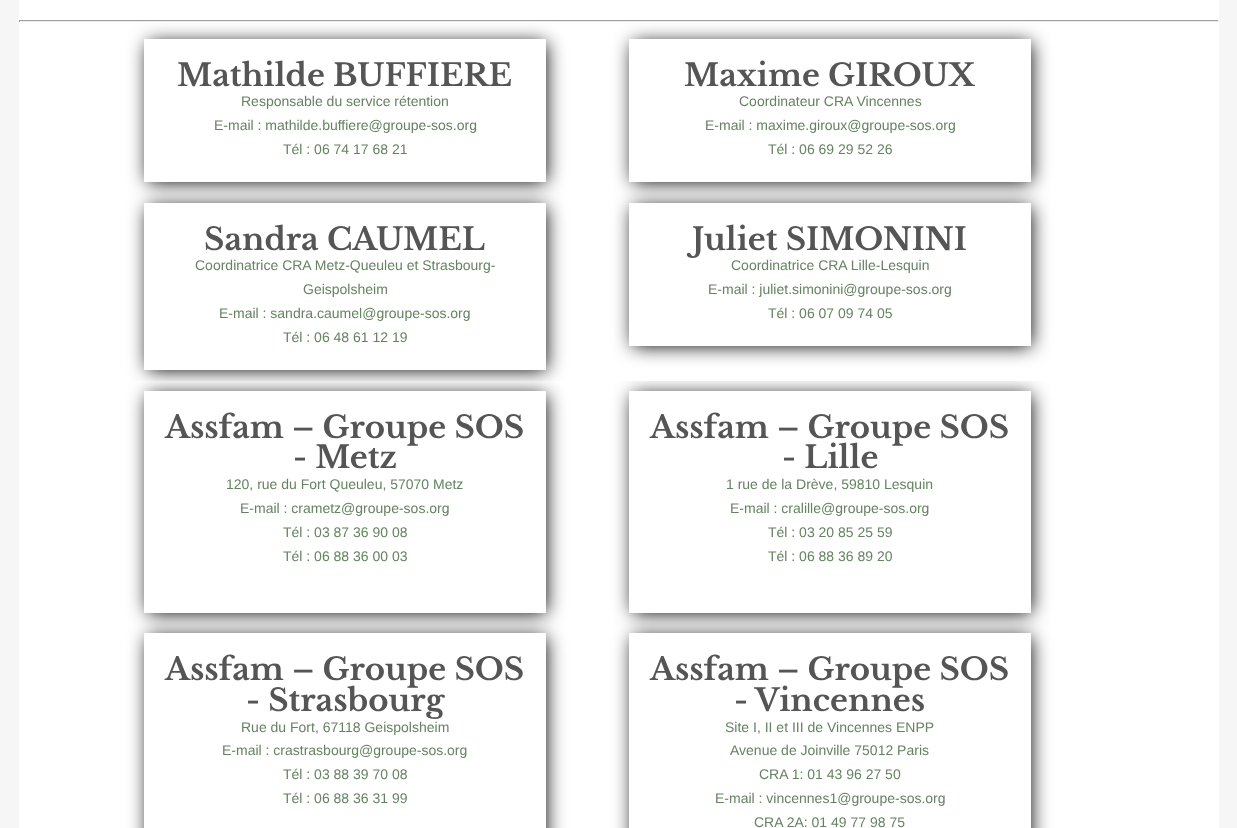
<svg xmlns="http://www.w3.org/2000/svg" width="1237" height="828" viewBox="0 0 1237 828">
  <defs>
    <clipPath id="clip1"><path d="M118 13H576V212H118ZM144 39H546V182H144Z" clip-rule="evenodd"/></clipPath>
    <clipPath id="clip2"><path d="M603 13H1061V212H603ZM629 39H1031V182H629Z" clip-rule="evenodd"/></clipPath>
    <clipPath id="clip3"><path d="M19 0h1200v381H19z"/></clipPath>
    <clipPath id="clip4"><path d="M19 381h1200v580H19z"/></clipPath>
    <clipPath id="clip5"><path d="M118 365H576V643H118ZM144 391H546V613H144Z" clip-rule="evenodd"/></clipPath>
    <clipPath id="clip6"><path d="M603 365H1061V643H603ZM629 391H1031V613H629Z" clip-rule="evenodd"/></clipPath>
  </defs>
  <rect width="100%" height="100%" fill="#f6f6f6"/>
  <path d="M19 0h1200v828H19z" fill="#fff"/>
  <g clip-path="url(#clip1)">
    <path d="M148 43h398v139H148z" fill="#000" filter="blur(9.5px)"/>
  </g>
  <g clip-path="url(#clip2)">
    <path d="M633 43h398v139H633z" fill="#000" filter="blur(9.5px)"/>
  </g>
  <path d="M19 20h1200v1H19z" fill="#9f9f9f"/>
  <path d="M1218 20h1v2H1218z" fill="#eee"/>
  <path d="M19 21h1200v1H19z" fill="#eee"/>
  <path d="M19 20h1v2H19z" fill="#9f9f9f"/>
  <g clip-path="url(#clip3)">
    <path d="M148 207h398v163H148z" fill="#000" filter="blur(9.5px)"/>
  </g>
  <path d="M144 203h402v167H144z" fill="#fff"/>
  <path d="M633 207h398v139H633z" fill="#000" filter="blur(9.5px)"/>
  <path d="M629 203h402v143H629z" fill="#fff"/>
  <g clip-path="url(#clip4)">
    <g clip-path="url(#clip5)">
      <path d="M148 395h398v218H148z" fill="#000" filter="blur(9.5px)"/>
    </g>
  </g>
  <g clip-path="url(#clip4)">
    <g clip-path="url(#clip6)">
      <path d="M633 395h398v218H633z" fill="#000" filter="blur(9.5px)"/>
    </g>
  </g>
  <path d="M148 637h398v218H148z" fill="#000" filter="blur(9.5px)"/>
  <path d="M144 633h402v195H144z" fill="#fff"/>
  <path d="M633 637h398v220H633z" fill="#000" filter="blur(9.5px)"/>
  <path d="M629 633h402v195H629z" fill="#fff"/>
  <text x="177" y="86" font-family="Libre Baskerville" font-size="30.75" font-weight="bold" fill="#555">Mathilde BUFFIERE</text>
  <g font-family="Liberation Sans" font-size="14" fill="#658361">
    <text x="241" y="106">Responsable du service rétention</text>
    <text x="214" y="130">E-mail : mathilde.buffiere@groupe-sos.org</text>
    <text x="283" y="154">Tél : 06 74 17 68 21</text>
  </g>
  <text x="684" y="86" font-family="Libre Baskerville" font-size="30.75" font-weight="bold" fill="#555">Maxime GIROUX</text>
  <g font-family="Liberation Sans" font-size="14" fill="#658361">
    <text x="739" y="106">Coordinateur CRA Vincennes</text>
    <text x="705" y="130">E-mail : maxime.giroux@groupe-sos.org</text>
    <text x="768" y="154">Tél : 06 69 29 52 26</text>
  </g>
  <text x="204" y="250" font-family="Libre Baskerville" font-size="30.75" font-weight="bold" fill="#555">Sandra CAUMEL</text>
  <g font-family="Liberation Sans" font-size="14" fill="#658361">
    <text x="195" y="270">Coordinatrice CRA Metz-Queuleu et Strasbourg-</text>
    <text x="303" y="294">Geispolsheim</text>
    <text x="219" y="318">E-mail : sandra.caumel@groupe-sos.org</text>
    <text x="283" y="342">Tél : 06 48 61 12 19</text>
  </g>
  <text x="692" y="250" font-family="Libre Baskerville" font-size="30.75" font-weight="bold" fill="#555">Juliet SIMONINI</text>
  <g font-family="Liberation Sans" font-size="14" fill="#658361">
    <text x="731" y="270">Coordinatrice CRA Lille-Lesquin</text>
    <text x="708" y="294">E-mail : juliet.simonini@groupe-sos.org</text>
    <text x="768" y="318">Tél : 06 07 09 74 05</text>
  </g>
  <g font-family="Libre Baskerville" font-size="30.75" font-weight="bold" fill="#555">
    <text x="165" y="438">Assfam – Groupe SOS</text>
    <text x="293" y="468">- Metz</text>
  </g>
  <g font-family="Liberation Sans" font-size="14" fill="#658361">
    <text x="226" y="489">120, rue du Fort Queuleu, 57070 Metz</text>
    <text x="240" y="513">E-mail : crametz@groupe-sos.org</text>
    <text x="283" y="537">Tél : 03 87 36 90 08</text>
    <text x="283" y="561">Tél : 06 88 36 00 03</text>
  </g>
  <g font-family="Libre Baskerville" font-size="30.75" font-weight="bold" fill="#555">
    <text x="650" y="438">Assfam – Groupe SOS</text>
    <text x="782" y="468">- Lille</text>
  </g>
  <g font-family="Liberation Sans" font-size="14" fill="#658361">
    <text x="726" y="489">1 rue de la Drève, 59810 Lesquin</text>
    <text x="730" y="513">E-mail : cralille@groupe-sos.org</text>
    <text x="768" y="537">Tél : 03 20 85 25 59</text>
    <text x="768" y="561">Tél : 06 88 36 89 20</text>
  </g>
  <g font-family="Libre Baskerville" font-size="30.75" font-weight="bold" fill="#555">
    <text x="165" y="680">Assfam – Groupe SOS</text>
    <text x="246" y="711">- Strasbourg</text>
  </g>
  <g font-family="Liberation Sans" font-size="14" fill="#658361">
    <text x="241" y="732">Rue du Fort, 67118 Geispolsheim</text>
    <text x="222" y="755">E-mail : crastrasbourg@groupe-sos.org</text>
    <text x="283" y="779">Tél : 03 88 39 70 08</text>
    <text x="283" y="803">Tél : 06 88 36 31 99</text>
  </g>
  <g font-family="Libre Baskerville" font-size="30.75" font-weight="bold" fill="#555">
    <text x="650" y="680">Assfam – Groupe SOS</text>
    <text x="734" y="711">- Vincennes</text>
  </g>
  <g font-family="Liberation Sans" font-size="14" fill="#658361">
    <text x="725" y="732">Site I, II et III de Vincennes ENPP</text>
    <text x="730" y="755">Avenue de Joinville 75012 Paris</text>
    <text x="759" y="779">CRA 1: 01 43 96 27 50</text>
    <text x="715" y="803">E-mail : vincennes1@groupe-sos.org</text>
    <text x="754" y="827">CRA 2A: 01 49 77 98 75</text>
  </g>
</svg>
